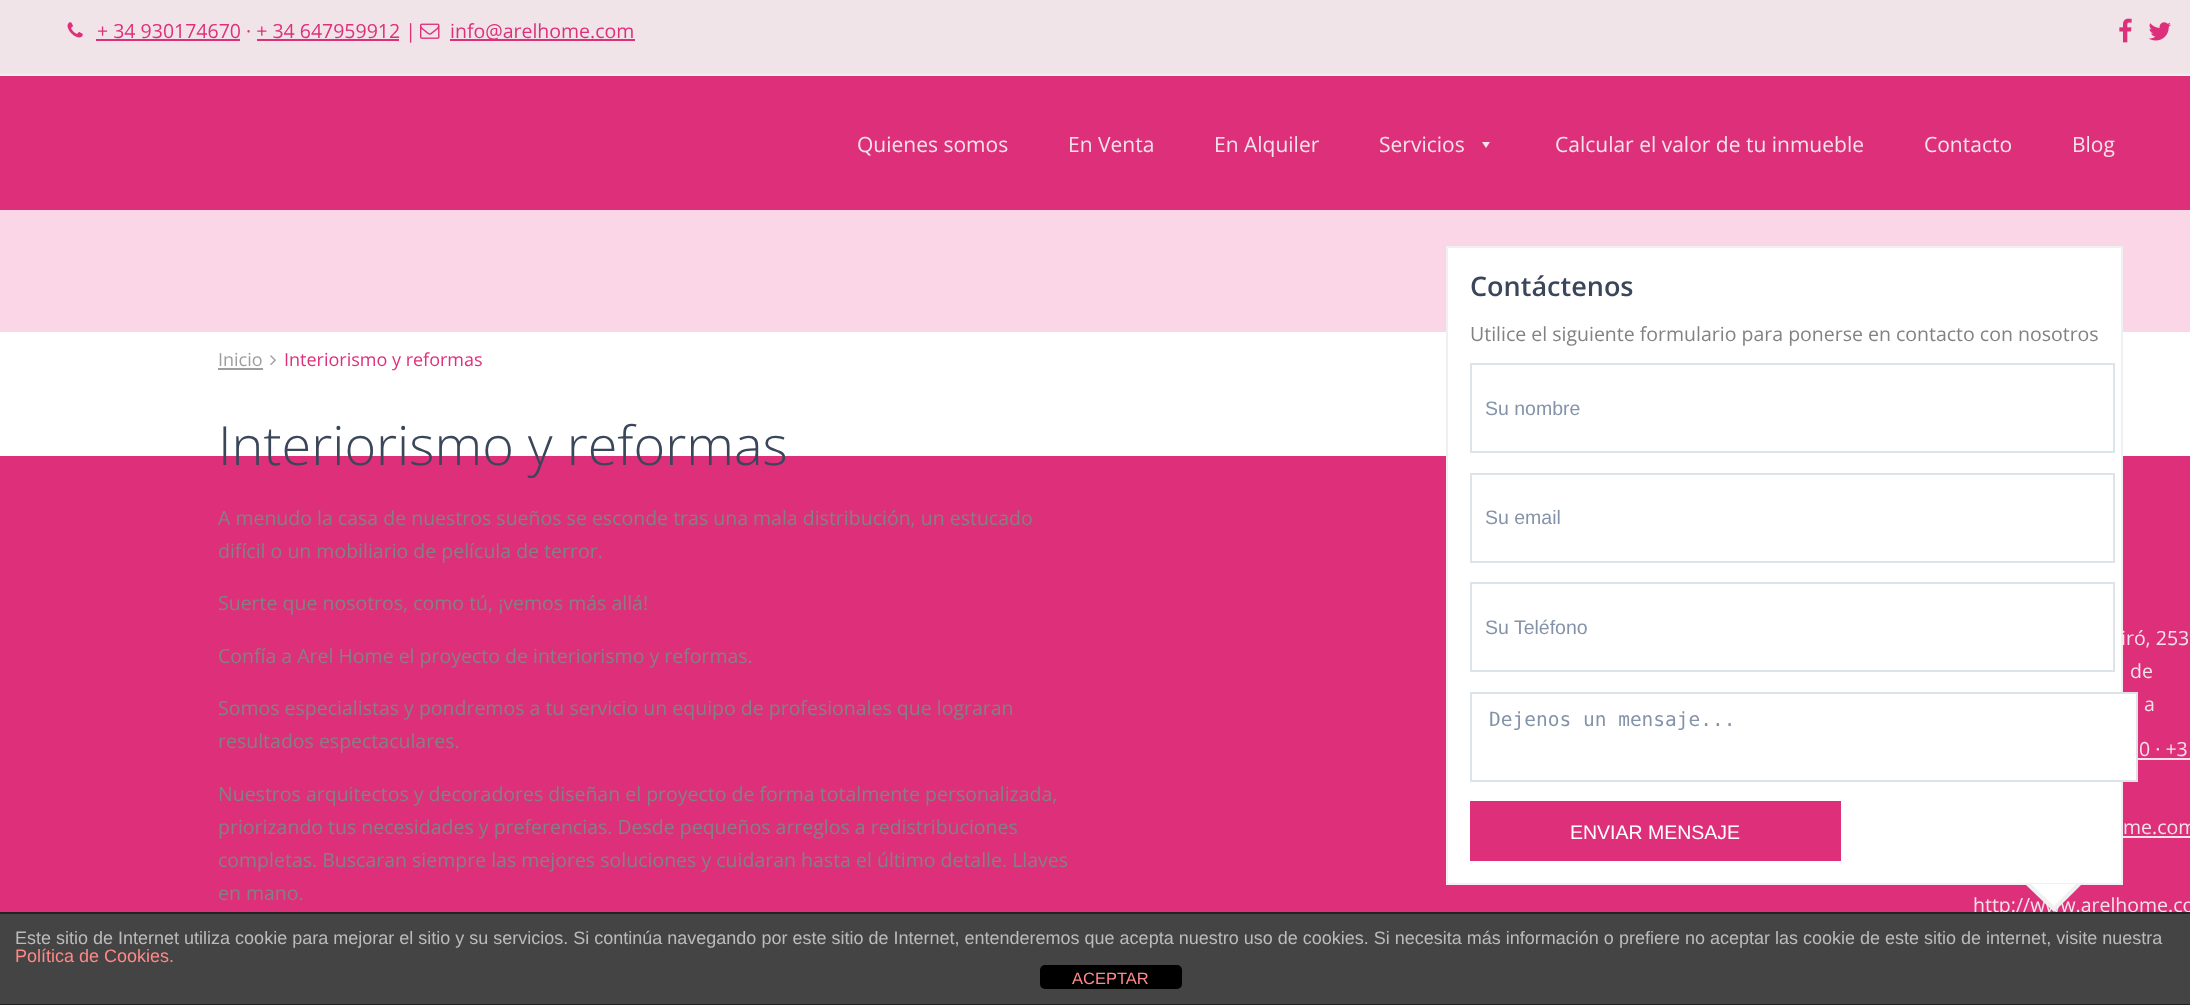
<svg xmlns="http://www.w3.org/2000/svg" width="2190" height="1005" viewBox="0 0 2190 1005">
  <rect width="100%" height="100%" fill="#fff"/>
  <path d="M0 76h2190v134H0z" fill="#de307a"/>
  <path d="M0 0h2190v74H0z" fill="#f0e4e9"/>
  <path d="M0 74h2190v2H0z" fill="#f0f0f0"/>
  <image x="67" y="22" width="16" height="16" href="img/1.png"/>
  <path d="M96 39h144v2H96z" fill="#de307a"/>
  <image x="420" y="23" width="20" height="16" href="img/2.png"/>
  <path d="M450 39h185v2H450z" fill="#de307a"/>
  <path d="M257 39h142v2H257z" fill="#de307a"/>
  <image x="2119" y="18" width="13" height="25" href="img/3.png"/>
  <image x="2148" y="22" width="23" height="19" href="img/4.png"/>
  <path d="M1490 142L1486 148L1482 142Z" fill="#f0e4e9"/>
  <path d="M0 210h2190v122H0z" fill="#fad6e7"/>
  <path d="M218 368h45v2H218z" fill="#9e9e9e"/>
  <image x="270" y="355" width="6" height="11" href="img/5.png"/>
  <path d="M0 456h2190v456H0z" fill="#de307a"/>
  <path d="M2138 758h52v2H2138z" fill="#f0e4e9"/>
  <path d="M2123 836h67v2H2123z" fill="#f0e4e9"/>
  <path d="M0 1004h2190v1H0z" fill="#222"/>
  <g font-family="Open Sans" font-size="19.5" fill="#de307a">
    <text x="97" y="38">+ 34 930174670 · + 34 647959912 |</text>
    <text x="450" y="38">info@arelhome.com</text>
  </g>
  <g font-family="Open Sans" font-size="21" fill="#f0e4e9">
    <text x="857" y="152">Quienes somos</text>
    <text x="1068" y="152">En Venta</text>
    <text x="1214" y="152">En Alquiler</text>
    <text x="1379" y="152">Servicios</text>
    <text x="1555" y="152">Calcular el valor de tu inmueble</text>
    <text x="1924" y="152">Contacto</text>
    <text x="2072" y="152">Blog</text>
  </g>
  <text x="218" y="366" font-family="Open Sans" font-size="18" fill="#9e9e9e">Inicio</text>
  <text x="284" y="366" font-family="Open Sans" font-size="18" fill="#de307a">Interiorismo y reformas</text>
  <text x="218" y="465" font-family="Open Sans" font-size="54" font-weight="300" fill="#3a4659">Interiorismo y reformas</text>
  <g font-family="Open Sans" font-size="19.5" fill="#828282">
    <text x="218" y="525">A menudo la casa de nuestros sueños se esconde tras una mala distribución, un estucado</text>
    <text x="218" y="558">difícil o un mobiliario de película de terror.</text>
    <text x="218" y="610">Suerte que nosotros, como tú, ¡vemos más allá!</text>
    <text x="218" y="663">Confía a Arel Home el proyecto de interiorismo y reformas.</text>
    <text x="218" y="715">Somos especialistas y pondremos a tu servicio un equipo de profesionales que lograran</text>
    <text x="218" y="748">resultados espectaculares.</text>
    <text x="218" y="801">Nuestros arquitectos y decoradores diseñan el proyecto de forma totalmente personalizada,</text>
    <text x="218" y="834">priorizando tus necesidades y preferencias. Desde pequeños arreglos a redistribuciones</text>
    <text x="218" y="867">completas. Buscaran siempre las mejores soluciones y cuidaran hasta el último detalle. Llaves</text>
    <text x="218" y="900">en mano.</text>
  </g>
  <text x="2121" y="645" font-family="Open Sans" font-size="19.5" fill="#f0e4e9">iró, 253</text>
  <path d="M1447 247h675v637H1447z" fill="#fff" stroke="#f0f0f0" stroke-width="2"/>
  <path d="M2121 694h15v86H2121z" fill="#fff"/>
  <path d="M1471 693h666v88H1471z" fill="none" stroke="#dde4e9" stroke-width="2"/>
  <text x="1489" y="726" font-family="DejaVu Sans Mono" font-size="19.5" fill="#8593a9">Dejenos un mensaje...</text>
  <path d="M1471 583h643v88H1471z" fill="none" stroke="#dde4e9" stroke-width="2"/>
  <text x="1485" y="634" font-family="Liberation Sans" font-size="19.5" fill="#8593a9">Su Teléfono</text>
  <path d="M1471 474h643v88H1471z" fill="none" stroke="#dde4e9" stroke-width="2"/>
  <text x="1485" y="524" font-family="Liberation Sans" font-size="19.5" fill="#8593a9">Su email</text>
  <path d="M1471 364h643v88H1471z" fill="none" stroke="#dde4e9" stroke-width="2"/>
  <text x="1485" y="415" font-family="Liberation Sans" font-size="19.5" fill="#8593a9">Su nombre</text>
  <text x="1470" y="341" font-family="Open Sans" font-size="19.5" fill="#828282">Utilice el siguiente formulario para ponerse en contacto con nosotros</text>
  <text x="1470" y="296" font-family="Open Sans" font-size="27" font-weight="600" fill="#3a4659">Contáctenos</text>
  <path d="M1470 801h371v60H1470z" fill="#de307a"/>
  <text x="1570" y="839" font-family="Liberation Sans" font-size="19.5" fill="#fff">ENVIAR MENSAJE</text>
  <g font-family="Open Sans" font-size="19.5" fill="#f0e4e9">
    <text x="2130" y="678">de</text>
    <text x="2144" y="711">a</text>
    <text x="2139" y="756">0 · +3</text>
    <text x="2123" y="834">me.com</text>
    <text x="1973" y="912">http://www.arelhome.co</text>
  </g>
  <path d="M2025 884H2082L2054 912Z" fill="#f0f0f0"/>
  <path d="M2031 884H2076L2054 906Z" fill="#fff"/>
  <path d="M0 914h2190v90H0z" fill="#444"/>
  <path d="M0 912h2190v2H0z" fill="#222"/>
  <text x="15" y="944" font-family="Liberation Sans" font-size="18" fill="#bbb">Este sitio de Internet utiliza cookie para mejorar el sitio y su servicios. Si continúa navegando por este sitio de Internet, entenderemos que acepta nuestro uso de cookies. Si necesita más información o prefiere no aceptar las cookie de este sitio de internet, visite nuestra</text>
  <text x="15" y="962" font-family="Liberation Sans" font-size="18" fill="#f88">Política de Cookies.</text>
  <rect x="1040" y="965" width="142" height="24" rx="5" fill="#000"/>
  <text x="1072" y="984" font-family="Liberation Sans" font-size="16.5" fill="#f88">ACEPTAR</text>
</svg>
